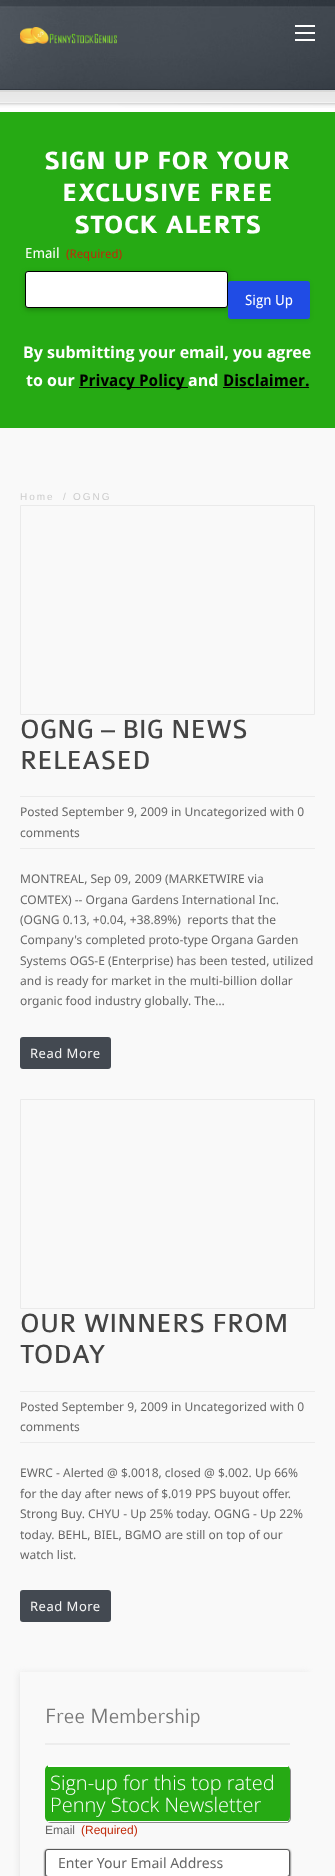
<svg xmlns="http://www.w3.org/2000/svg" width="335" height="1876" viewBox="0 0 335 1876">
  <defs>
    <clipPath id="clip1"><path d="M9 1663H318V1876H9ZM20 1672H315V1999H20Z" clip-rule="evenodd"/></clipPath>
  </defs>
  <rect width="100%" height="100%" fill="#fff"/>
  <image x="0" y="0" width="335" height="92" href="img/1.png"/>
  <image x="20" y="27" width="97" height="17" href="img/2.png"/>
  <path d="M295 25h20v2H295z" fill="#fff"/>
  <path d="M295 32h20v2H295z" fill="#fff"/>
  <path d="M295 39h20v2H295z" fill="#fff"/>
  <path d="M0 112h335v316H0z" fill="#26aa14"/>
  <image x="0" y="92" width="335" height="16" href="img/3.png"/>
  <rect x="25" y="273" width="203" height="37" rx="3" fill="#1d830f" filter="blur(2.5px)"/>
  <rect x="25.5" y="271.5" width="202" height="36" rx="2.5" fill="#fff" stroke="#000"/>
  <rect x="228" y="282" width="82" height="38" rx="3" fill="#12196114" filter="blur(2px)"/>
  <rect x="228" y="281" width="82" height="38" rx="3" fill="#204ce5"/>
  <path d="M79 387h109v1H79z" fill="#000"/>
  <path d="M223 387h86v1H223z" fill="#000"/>
  <path d="M0 428h335v1448H0z" fill="#f9f9f9"/>
  <path d="M20.5 505.5h294v209H20.5z" fill="none" stroke="#eaeaea"/>
  <path d="M20 796h295v1H20z" fill="#ebebeb"/>
  <path d="M20 848h295v1H20z" fill="#ebebeb"/>
  <rect x="20" y="1037" width="91" height="32" rx="3" fill="#434951"/>
  <path d="M20.5 1099.5h294v209H20.5z" fill="none" stroke="#eaeaea"/>
  <path d="M20 1391h295v1H20z" fill="#ebebeb"/>
  <path d="M20 1442h295v1H20z" fill="#ebebeb"/>
  <rect x="20" y="1590" width="91" height="32" rx="3" fill="#434951"/>
  <g clip-path="url(#clip1)">
    <path d="M19 1673h289v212H19z" fill="#e5e5e5" filter="blur(3px)"/>
  </g>
  <path d="M45 1743h245v2H45z" fill="#ededed"/>
  <path d="M47 1821C48 1822 49 1823 51 1823H286C289 1823 291 1821 291 1818V1771C291 1769 290 1768 289 1767C290 1768 290 1769 290 1770V1817C290 1820 288 1822 285 1822H50C49 1822 48 1822 47 1821Z" fill="#8b8b8b"/>
  <rect x="45" y="1765" width="245" height="57" rx="5" fill="#26aa14"/>
  <path d="M48 1765h240v2H48z" fill="#fff"/>
  <path d="M48 1821h240v1H48z" fill="#fff"/>
  <rect x="45" y="1850" width="245" height="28" rx="3" fill="#000" filter="blur(1px)"/>
  <rect x="45.5" y="1849.5" width="244" height="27" rx="2.5" fill="#fff" stroke="#585858"/>
  <g font-family="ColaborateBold" font-size="26.5" font-weight="bold" fill="#fff">
    <text x="44" y="169">SIGN UP FOR YOUR</text>
    <text x="62" y="201">EXCLUSIVE FREE</text>
    <text x="74" y="233">STOCK ALERTS</text>
  </g>
  <text x="25" y="258" font-family="Droid Sans" font-size="14" fill="#fff">Email</text>
  <text x="66" y="258" font-family="Droid Sans" font-size="12" fill="#c02b0a">(Required)</text>
  <text x="245" y="305" font-family="Droid Sans" font-size="14" fill="#fff">Sign Up</text>
  <g font-family="Open Sans" font-size="16" font-weight="bold" fill="#fff">
    <text x="23" y="358">By submitting your email, you agree</text>
    <text x="26" y="386">to our</text>
  </g>
  <text x="79" y="386" font-family="Droid Sans" font-size="16" font-weight="bold" fill="#000">Privacy Policy</text>
  <text x="188" y="386" font-family="Open Sans" font-size="16" font-weight="bold" fill="#fff">and</text>
  <text x="223" y="386" font-family="Droid Sans" font-size="16" font-weight="bold" fill="#000">Disclaimer.</text>
  <g font-family="Liberation Sans" font-size="10" letter-spacing="2" fill="#ccc">
    <text x="20" y="500">Home</text>
    <text x="63" y="500">/</text>
    <text x="73" y="500">OGNG</text>
  </g>
  <g font-family="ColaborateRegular" font-size="28" fill="#444">
    <text x="20" y="738">OGNG – BIG NEWS</text>
    <text x="20" y="769">RELEASED</text>
  </g>
  <g font-family="Noto Sans" font-size="12" fill="#666">
    <text x="20" y="816">Posted September 9, 2009 in Uncategorized with 0</text>
    <text x="20" y="837">comments</text>
    <text x="20" y="883">MONTREAL, Sep 09, 2009 (MARKETWIRE via</text>
    <text x="20" y="904">COMTEX) -- Organa Gardens International Inc.</text>
    <text x="20" y="924" xml:space="preserve">(OGNG 0.13, +0.04, +38.89%)  reports that the</text>
    <text x="20" y="944">Company's completed proto-type Organa Garden</text>
    <text x="20" y="965">Systems OGS-E (Enterprise) has been tested, utilized</text>
    <text x="20" y="985">and is ready for market in the multi-billion dollar</text>
    <text x="20" y="1005">organic food industry globally. The…</text>
  </g>
  <text x="30" y="1058" font-family="Noto Sans" font-size="13" letter-spacing="0.5" fill="#f5f5f5">Read More</text>
  <g font-family="ColaborateRegular" font-size="28" fill="#444">
    <text x="20" y="1332">OUR WINNERS FROM</text>
    <text x="20" y="1363">TODAY</text>
  </g>
  <g font-family="Noto Sans" font-size="12" fill="#666">
    <text x="20" y="1411">Posted September 9, 2009 in Uncategorized with 0</text>
    <text x="20" y="1431">comments</text>
    <text x="20" y="1477">EWRC - Alerted @ $.0018, closed @ $.002. Up 66%</text>
    <text x="20" y="1498">for the day after news of $.019 PPS buyout offer.</text>
    <text x="20" y="1518">Strong Buy. CHYU - Up 25% today. OGNG - Up 22%</text>
    <text x="20" y="1539">today. BEHL, BIEL, BGMO are still on top of our</text>
    <text x="20" y="1559">watch list.</text>
  </g>
  <text x="30" y="1611" font-family="Noto Sans" font-size="13" letter-spacing="0.5" fill="#f5f5f5">Read More</text>
  <text x="45" y="1723" font-family="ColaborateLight" font-size="22" font-weight="300" fill="#777">Free Membership</text>
  <g font-family="Open Sans" font-size="20" font-weight="300" fill="#fff">
    <text x="50" y="1790">Sign-up for this top rated</text>
    <text x="50" y="1812">Penny Stock Newsletter</text>
  </g>
  <text x="45" y="1834" font-family="Liberation Sans" font-size="12" fill="#666">Email</text>
  <text x="81" y="1834" font-family="Liberation Sans" font-size="12" fill="#c02b0a">(Required)</text>
  <text x="58" y="1868" font-family="Noto Sans" font-size="14" fill="#666">Enter Your Email Address</text>
</svg>
